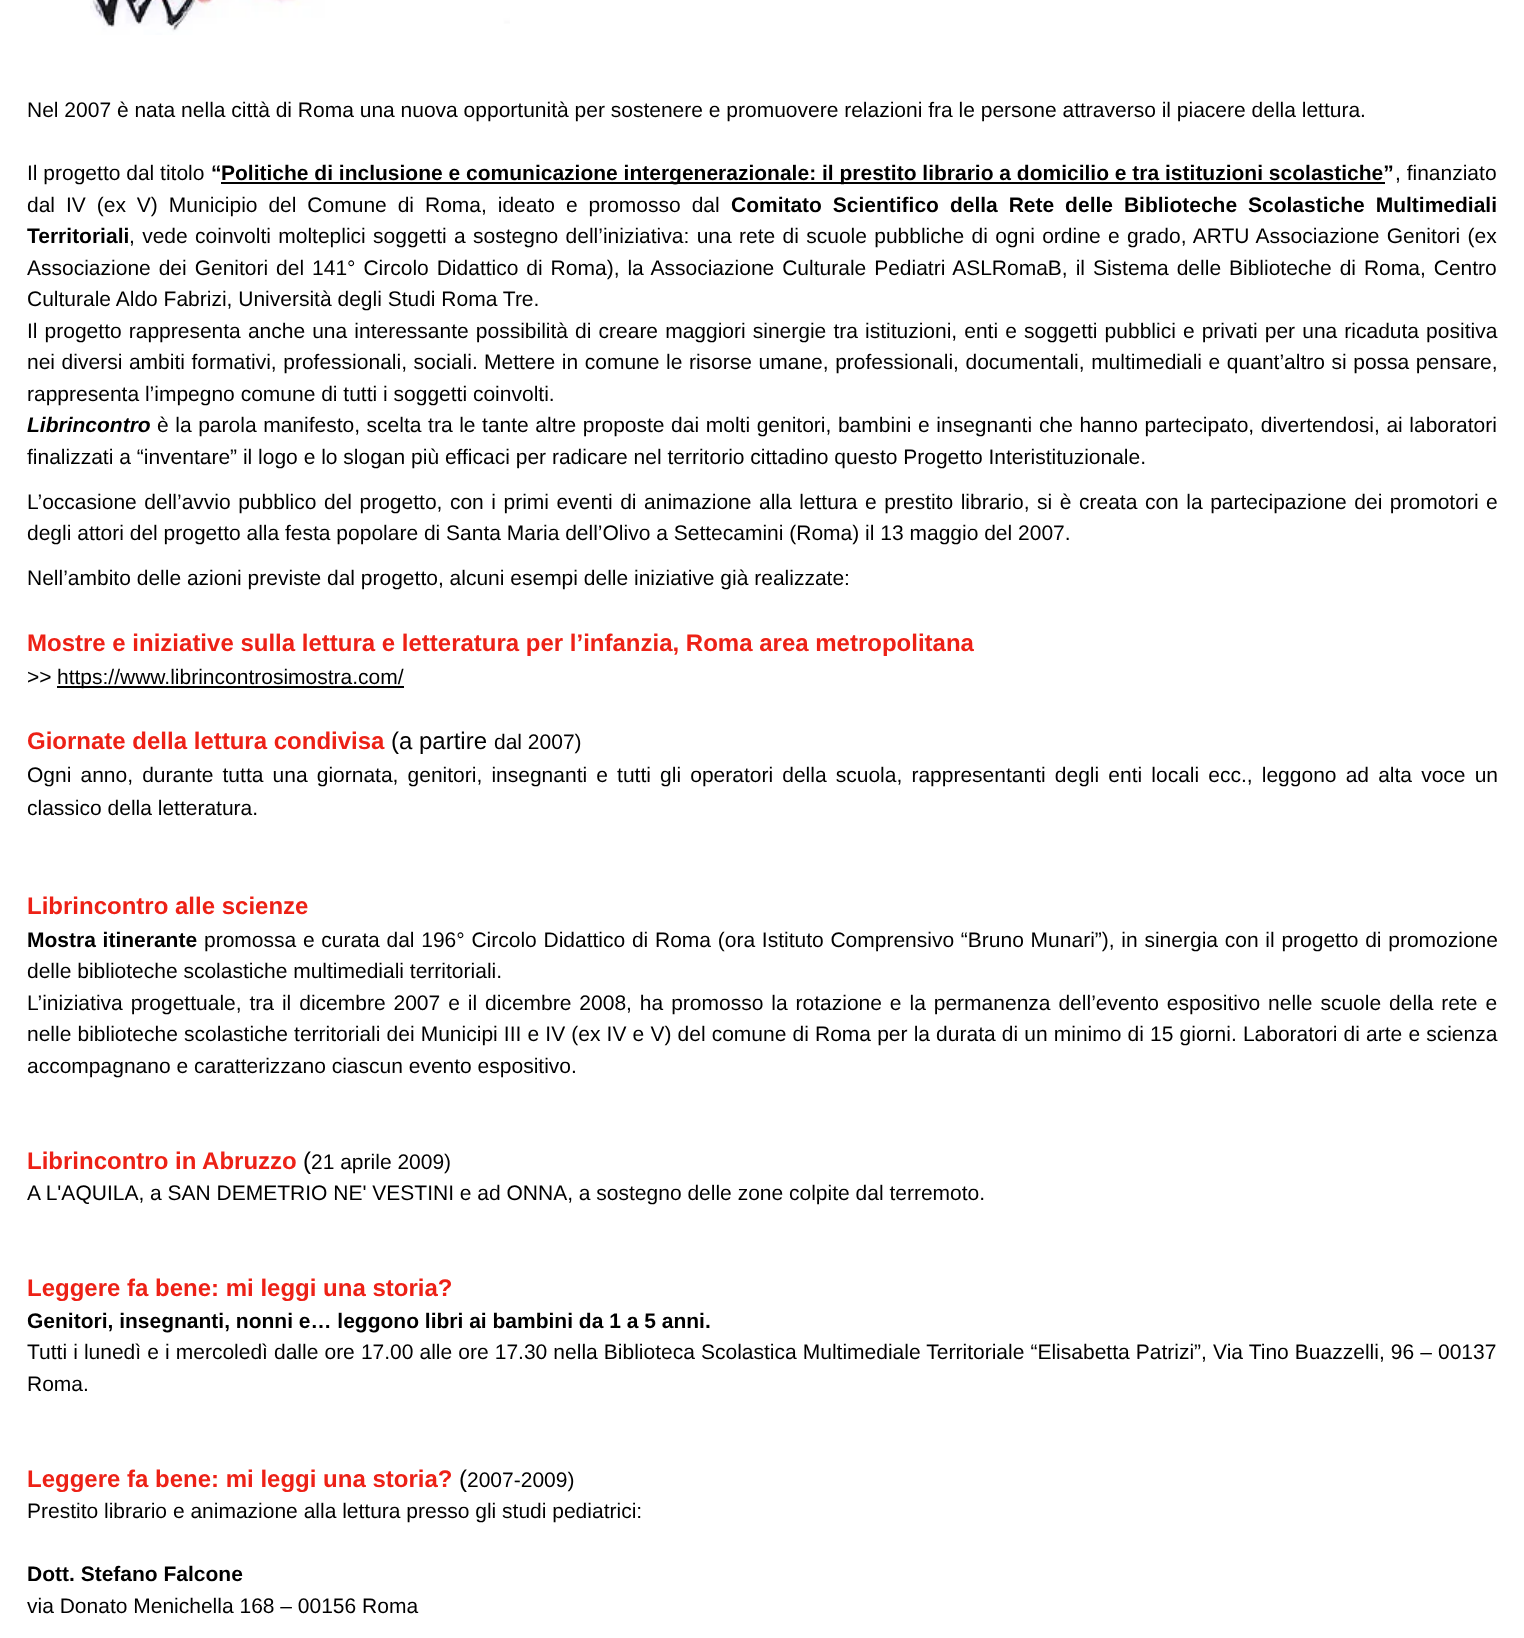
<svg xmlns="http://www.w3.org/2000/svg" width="1524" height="1638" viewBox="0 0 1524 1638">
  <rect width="100%" height="100%" fill="#fff"/>
  <image x="90" y="0" width="420" height="35" href="img/1.png"/>
  <path d="M221 182h1164v2H221z" fill="#000"/>
  <path d="M57 686h347v2H57z" fill="#000"/>
  <g font-family="Liberation Sans" font-size="21" fill="#000">
    <text x="27" y="117">Nel 2007 è nata nella città di Roma una nuova opportunità per sostenere e promuovere relazioni fra le persone attraverso il piacere della lettura.</text>
    <text x="27" y="180">Il progetto dal titolo</text>
  </g>
  <g font-family="Liberation Sans" font-size="21" font-weight="bold" fill="#000">
    <text x="211" y="180">“</text>
    <text x="221" y="180">Politiche di inclusione e comunicazione intergenerazionale: il prestito librario a domicilio e tra istituzioni scolastiche”</text>
  </g>
  <g font-family="Liberation Sans" font-size="21" fill="#000">
    <text x="1395" y="180">, finanziato</text>
    <text x="27" y="212" word-spacing="5.1">dal IV (ex V) Municipio del Comune di Roma, ideato e promosso dal</text>
  </g>
  <g font-family="Liberation Sans" font-size="21" font-weight="bold" fill="#000">
    <text x="731" y="212">Comita</text>
    <text x="802" y="212" word-spacing="5.1">to Scientifico della Rete delle Biblioteche Scolastiche Multimediali</text>
    <text x="27" y="243">Territoriali</text>
  </g>
  <g font-family="Liberation Sans" font-size="21" fill="#000">
    <text x="129" y="243" word-spacing="1.5">, vede coinvolti molteplici soggetti a sostegno dell’iniziativa: una rete di scuole pubbliche di ogni ordine e grado, ARTU Associazione Genitori (ex</text>
    <text x="27" y="275" word-spacing="2.1">Associazione dei Genitori del 141° Circolo Didattico di Roma), la Associazione Culturale Pediatri ASLRomaB, il Sistema delle Biblioteche di Roma, Centro</text>
    <text x="27" y="306">Culturale Aldo Fabrizi, Università degli Studi Roma Tre.</text>
    <text x="27" y="338" word-spacing="1.25">Il progetto rappresenta anche una interessante possibilità di creare maggiori sinergie tra istituzioni, enti e soggetti pubblici e privati per una ricaduta positiva</text>
    <text x="27" y="369" word-spacing="0.75">nei diversi ambiti formativi, professionali, sociali.</text>
    <text x="484" y="369" word-spacing="0.75">Mettere in comune le risorse umane, professionali, documentali, multimediali e quant’altro si possa pensare,</text>
    <text x="27" y="401">rappresenta l’impegno comune di tutti i soggetti coinvolti.</text>
  </g>
  <text x="27" y="432" font-family="Liberation Sans" font-size="21" font-weight="bold" font-style="italic" fill="#000">Librincontro</text>
  <g font-family="Liberation Sans" font-size="21" fill="#000">
    <text x="157" y="432" word-spacing="0.75">è la parola manifesto, scelta tra le tante altre proposte dai molti genitori, bambini e insegnanti</text>
    <text x="1039" y="432" word-spacing="0.75">che hanno partecipato, divertendosi, ai laboratori</text>
    <text x="27" y="464">finalizzati a “inventare” il logo e lo slogan più efficaci per radicare nel territorio cittadino questo Progetto Interistituzionale.</text>
    <text x="27" y="509" word-spacing="1.7">L’occasione dell’avvio pubblico del progetto, con i primi eventi di animazione alla lettura e prestito librario, si è creata con la partecipazione dei promotori e</text>
    <text x="27" y="540">degli attori del progetto alla festa popolare di Santa Maria dell’Olivo a Settecamini (Roma) il 13 maggio del 2007.</text>
    <text x="27" y="585">Nell’ambito delle azioni previste dal progetto, alcuni esempi delle iniziative già realizzate:</text>
  </g>
  <text x="27" y="651" font-family="Liberation Sans" font-size="24" font-weight="bold" fill="#ed2116">Mostre e iniziative sulla lettura e letteratura per l’infanzia, Roma area metropolitana</text>
  <g font-family="Liberation Sans" font-size="21" fill="#000">
    <text x="27" y="684">&gt;&gt;</text>
    <text x="57" y="684">https://www.librincontrosimostra.com/</text>
  </g>
  <text x="27" y="749" font-family="Liberation Sans" font-size="24" font-weight="bold" fill="#ed2116">Giornate della lettura condivisa</text>
  <text x="391" y="749" font-family="Liberation Sans" font-size="24" fill="#000">(a partire</text>
  <g font-family="Liberation Sans" font-size="21" fill="#000">
    <text x="494" y="749">dal 2007)</text>
    <text x="27" y="782" word-spacing="3.3">Ogni anno, durante tutta una giornata, genitori, insegnanti e tutti gli operatori della scuola, rappresentanti degli enti locali ecc., leggono ad alta voce un</text>
    <text x="27" y="815">classico della letteratura.</text>
  </g>
  <text x="27" y="914" font-family="Liberation Sans" font-size="24" font-weight="bold" fill="#ed2116">Librincontro alle scienze</text>
  <text x="27" y="947" word-spacing="0.9" font-family="Liberation Sans" font-size="21" font-weight="bold" fill="#000">Mostra itinerante</text>
  <g font-family="Liberation Sans" font-size="21" fill="#000">
    <text x="204" y="947" word-spacing="0.9">promossa e curata dal 196° Circolo Didattico di Roma (ora Istituto Comprensivo “Bruno Munari”), in sinergia con il progetto di promozione</text>
    <text x="27" y="978">delle biblioteche scolastiche multimediali territoriali.</text>
    <text x="27" y="1010" word-spacing="2.1">L’iniziativa progettuale, tra il dicembre 2007 e il dicembre 2008, ha promosso la rotazione e la permanenza dell’evento espositivo nelle scuole della rete e</text>
    <text x="27" y="1041" word-spacing="0.3">nelle biblioteche scolastiche territoriali dei Municipi III e IV (ex IV e V) del comune di Roma per la durata di un minimo di 15 giorni. Laboratori di arte e scienza</text>
    <text x="27" y="1073">accompagnano e caratterizzano ciascun evento espositivo.</text>
  </g>
  <text x="27" y="1169" font-family="Liberation Sans" font-size="24" font-weight="bold" fill="#ed2116">Librincontro in Abruzzo</text>
  <text x="303" y="1169" font-family="Liberation Sans" font-size="24" fill="#000">(</text>
  <g font-family="Liberation Sans" font-size="21" fill="#000">
    <text x="311" y="1169">21 aprile 2009)</text>
    <text x="27" y="1200">A L'AQUILA, a SAN DEMETRIO NE' VESTINI e ad ONNA, a sostegno delle zone colpite dal terremoto.</text>
  </g>
  <text x="27" y="1296" font-family="Liberation Sans" font-size="24" font-weight="bold" fill="#ed2116">Leggere fa bene: mi leggi una storia?</text>
  <text x="27" y="1328" font-family="Liberation Sans" font-size="21" font-weight="bold" fill="#000">Genitori, insegnanti, nonni e… leggono libri ai bambini da 1 a 5 anni.</text>
  <g font-family="Liberation Sans" font-size="21" fill="#000">
    <text x="27" y="1359" word-spacing="0.25">Tutti i lunedì e i mercoledì dalle ore 17.00 alle ore 17.30 nella Biblioteca Scolastica Multimediale Territoriale “Elisabetta Patrizi”, Via Tino Buazzelli, 96 – 00137</text>
    <text x="27" y="1391">Roma.</text>
  </g>
  <text x="27" y="1487" font-family="Liberation Sans" font-size="24" font-weight="bold" fill="#ed2116">Leggere fa bene: mi leggi una storia?</text>
  <text x="459" y="1487" font-family="Liberation Sans" font-size="24" fill="#000">(</text>
  <g font-family="Liberation Sans" font-size="21" fill="#000">
    <text x="467" y="1487">2007-2009)</text>
    <text x="27" y="1518">Prestito librario e animazione alla lettura presso gli studi pediatrici:</text>
  </g>
  <text x="27" y="1581" font-family="Liberation Sans" font-size="21" font-weight="bold" fill="#000">Dott. Stefano Falcone</text>
  <text x="27" y="1613" font-family="Liberation Sans" font-size="21" fill="#000">via Donato Menichella 168 – 00156 Roma</text>
</svg>
